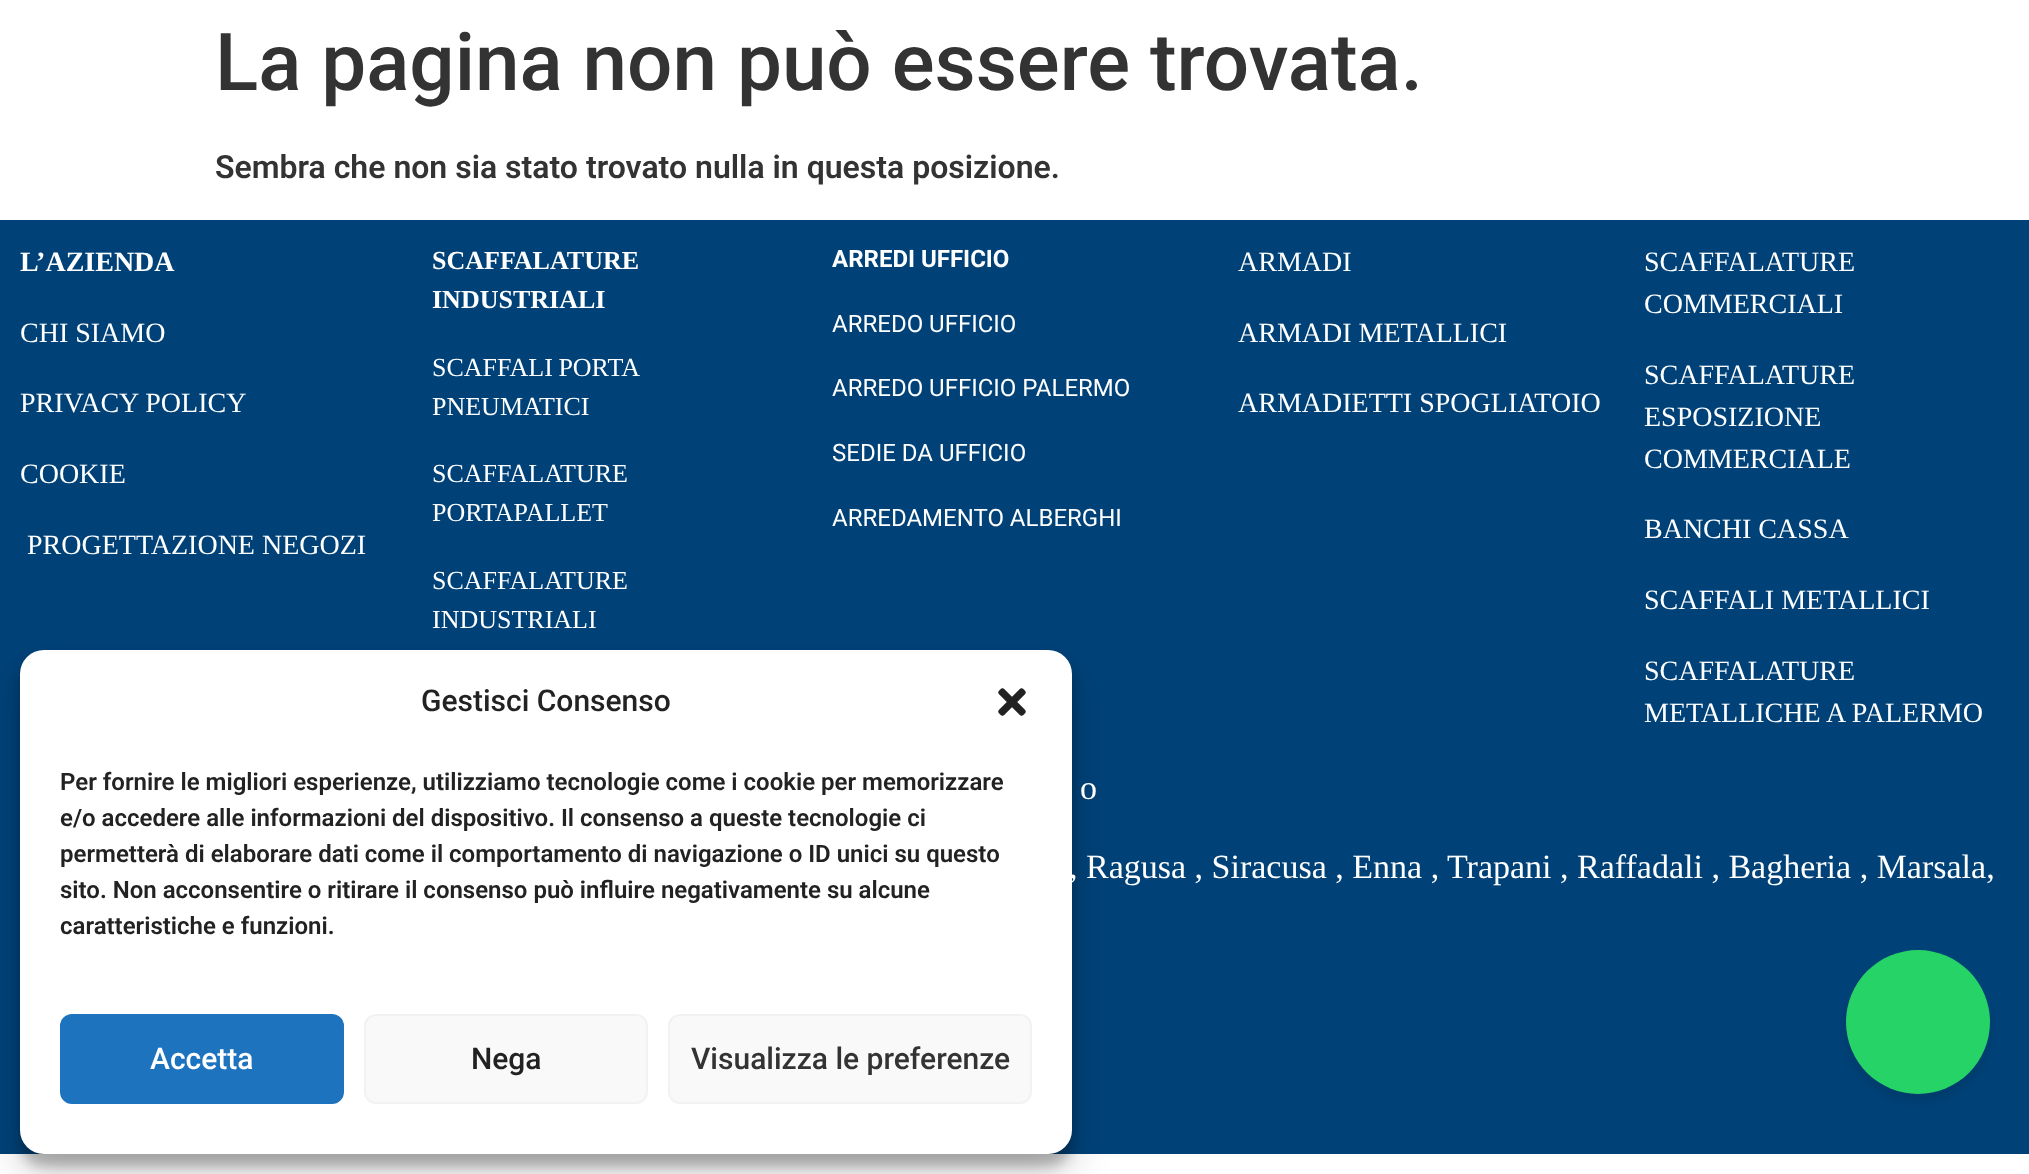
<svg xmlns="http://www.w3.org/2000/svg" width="2029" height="1174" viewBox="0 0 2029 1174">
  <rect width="100%" height="100%" fill="#fff"/>
  <path d="M0 220h2029v934H0z" fill="#004278"/>
  <rect x="1846" y="958" width="144" height="144" rx="72" fill="#0000001a" filter="blur(6px)"/>
  <circle cx="1918" cy="1022" r="72" fill="#25d366"/>
  <rect x="20" y="662" width="1052" height="504" rx="24" fill="#0000003b" filter="blur(6px)"/>
  <rect x="20" y="670" width="1052" height="504" rx="24" fill="#00000030" filter="blur(20px)"/>
  <rect x="20" y="650" width="1052" height="504" rx="24" fill="#fff"/>
  <image x="998" y="688" width="28" height="28" href="img/1.png"/>
  <rect x="61" y="1015" width="282" height="88" rx="11" fill="#1e73be" stroke="#1e73be" stroke-width="2"/>
  <rect x="365" y="1015" width="282" height="88" rx="11" fill="#f9f9f9" stroke="#f2f2f2" stroke-width="2"/>
  <rect x="669" y="1015" width="362" height="88" rx="11" fill="#f9f9f9" stroke="#f2f2f2" stroke-width="2"/>
  <text x="215" y="90" font-family="Roboto" font-size="80" font-weight="500" fill="#333">La pagina non può essere trovata.</text>
  <text x="215" y="178" font-family="Roboto" font-size="32" font-weight="600" fill="#333">Sembra che non sia stato trovato nulla in questa posizione.</text>
  <text x="20" y="271" font-family="Liberation Serif" font-size="28" font-weight="bold" fill="#fff">L’AZIENDA</text>
  <g font-family="Liberation Serif" font-size="28" fill="#fff">
    <text x="20" y="342">CHI SIAMO</text>
    <text x="20" y="412">PRIVACY POLICY</text>
    <text x="20" y="483">COOKIE</text>
    <text x="27" y="554">PROGETTAZIONE NEGOZI</text>
  </g>
  <g font-family="Liberation Serif" font-size="26" font-weight="bold" fill="#fff">
    <text x="432" y="269">SCAFFALATURE</text>
    <text x="432" y="308">INDUSTRIALI</text>
  </g>
  <g font-family="Liberation Serif" font-size="26" fill="#fff">
    <text x="432" y="376" word-spacing="-1">SCAFFALI PORTA</text>
    <text x="432" y="415">PNEUMATICI</text>
    <text x="432" y="482">SCAFFALATURE</text>
    <text x="432" y="521">PORTAPALLET</text>
    <text x="432" y="589">SCAFFALATURE</text>
    <text x="432" y="628">INDUSTRIALI</text>
  </g>
  <text x="832" y="267" font-family="Roboto" font-size="24" font-weight="bold" fill="#fff">ARREDI UFFICIO</text>
  <g font-family="Roboto" font-size="24" fill="#fff">
    <text x="832" y="332">ARREDO UFFICIO</text>
    <text x="832" y="396">ARREDO UFFICIO PALERMO</text>
    <text x="832" y="461">SEDIE DA UFFICIO</text>
    <text x="832" y="526">ARREDAMENTO ALBERGHI</text>
  </g>
  <g font-family="Liberation Serif" font-size="28" fill="#fff">
    <text x="1238" y="271">ARMADI</text>
    <text x="1238" y="342">ARMADI METALLICI</text>
    <text x="1238" y="412">ARMADIETTI SPOGLIATOIO</text>
    <text x="1644" y="271">SCAFFALATURE</text>
    <text x="1644" y="313">COMMERCIALI</text>
    <text x="1644" y="384">SCAFFALATURE</text>
    <text x="1644" y="426">ESPOSIZIONE</text>
    <text x="1644" y="468">COMMERCIALE</text>
    <text x="1644" y="538">BANCHI CASSA</text>
    <text x="1644" y="609">SCAFFALI METALLICI</text>
    <text x="1644" y="680">SCAFFALATURE</text>
    <text x="1644" y="722">METALLICHE A PALERMO</text>
  </g>
  <g font-family="Liberation Serif" font-size="34" fill="#fff">
    <text x="1080" y="799">o</text>
    <text x="1069" y="878">, Ragusa , Siracusa , Enna , Trapani , Raffadali , Bagheria , Marsala,</text>
  </g>
  <text x="421" y="711" font-family="Roboto" font-size="30" font-weight="500" fill="#222">Gestisci Consenso</text>
  <g font-family="Roboto" font-size="24" font-weight="600" fill="#222">
    <text x="60" y="790">Per fornire le migliori esperienze, utilizziamo tecnologie come i cookie per memorizzare</text>
    <text x="60" y="826">e/o accedere alle informazioni del dispositivo. Il consenso a queste tecnologie ci</text>
    <text x="60" y="862">permetterà di elaborare dati come il comportamento di navigazione o ID unici su questo</text>
    <text x="60" y="898">sito. Non acconsentire o ritirare il consenso può influire negativamente su alcune</text>
    <text x="60" y="934">caratteristiche e funzioni.</text>
  </g>
  <text x="150" y="1069" font-family="Roboto" font-size="30" font-weight="500" fill="#fff">Accetta</text>
  <text x="471" y="1069" font-family="Roboto" font-size="30" font-weight="500" fill="#222">Nega</text>
  <text x="691" y="1069" font-family="Roboto" font-size="30" font-weight="500" fill="#333">Visualizza le preferenze</text>
</svg>
